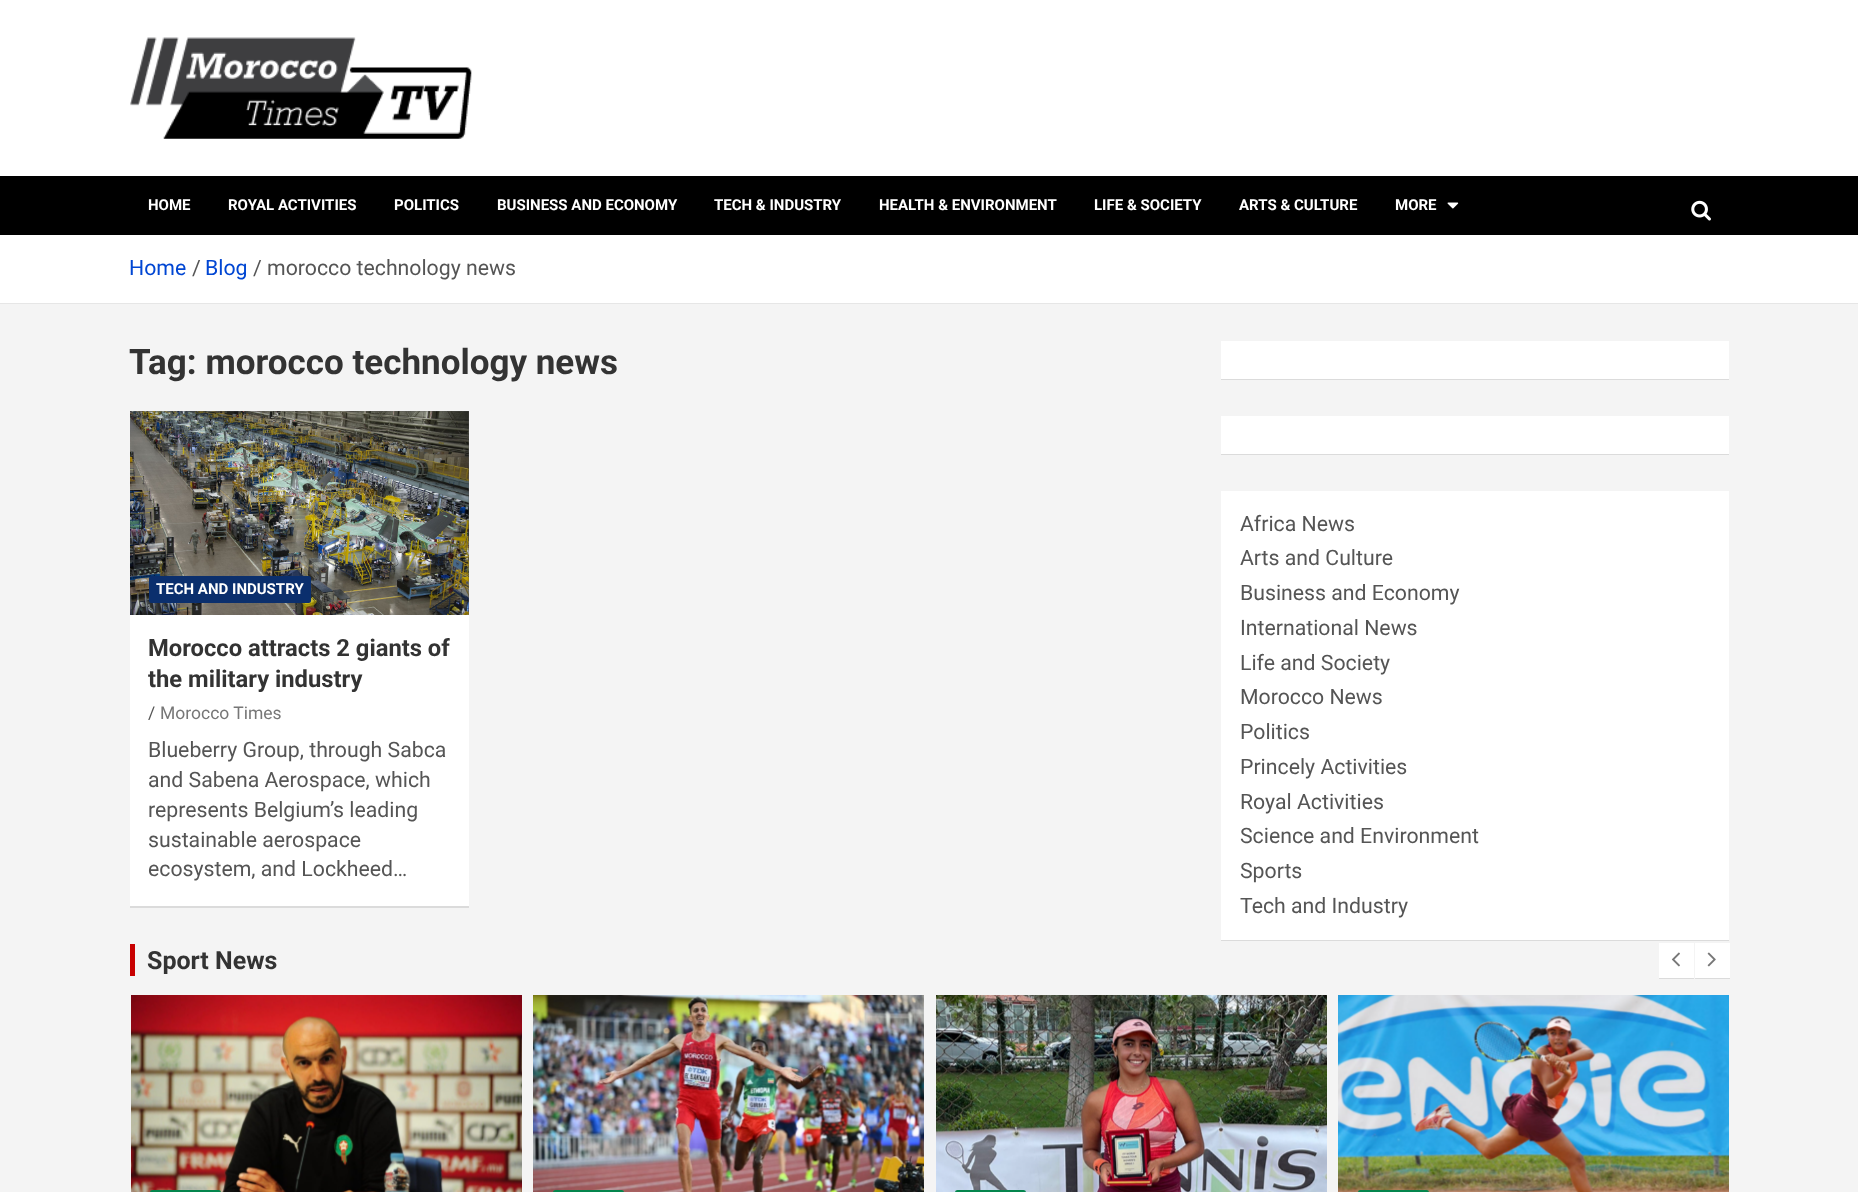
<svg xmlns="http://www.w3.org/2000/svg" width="1858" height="1192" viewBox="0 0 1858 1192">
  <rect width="100%" height="100%" fill="#f4f4f4"/>
  <path d="M0 0h1858v176H0z" fill="#fff"/>
  <image x="130" y="37" width="342" height="102" href="img/1.png"/>
  <path d="M0 176h1858v59H0z" fill="#000"/>
  <image x="1447" y="202" width="12" height="7" href="img/2.png"/>
  <image x="1691" y="200" width="20" height="21" href="img/3.png"/>
  <path d="M0 235h1858v68H0z" fill="#fff"/>
  <path d="M0 303h1858v1H0z" fill="#e6e6e6"/>
  <path d="M130 413h339v495H130z" fill="#0000001a" filter="blur(0.5px)"/>
  <path d="M130 615h339v291H130z" fill="#fff"/>
  <path d="M130 411h339v204H130z" fill="#555"/>
  <image x="130" y="411" width="339" height="204" href="img/4.png"/>
  <rect x="149" y="576" width="162" height="27" rx="2.5" fill="#0b2f6d"/>
  <path d="M1221 343h508v37H1221z" fill="#0000001a" filter="blur(0.5px)"/>
  <path d="M1221 341h508v38H1221z" fill="#fff"/>
  <path d="M1221 418h508v37H1221z" fill="#0000001a" filter="blur(0.5px)"/>
  <path d="M1221 416h508v38H1221z" fill="#fff"/>
  <path d="M1221 493h508v448H1221z" fill="#0000001a" filter="blur(0.5px)"/>
  <path d="M1221 491h508v449H1221z" fill="#fff"/>
  <path d="M1659 944h35v35H1659z" fill="#0000001a" filter="blur(0.5px)"/>
  <path d="M1659 943h35v35H1659z" fill="#fff"/>
  <image x="1671" y="952" width="9" height="15" href="img/5.png"/>
  <path d="M1695 944h35v35H1695z" fill="#0000001a" filter="blur(0.5px)"/>
  <path d="M1695 943h35v35H1695z" fill="#fff"/>
  <image x="1707" y="952" width="9" height="15" href="img/6.png"/>
  <image x="131" y="995" width="391" height="197" href="img/7.png"/>
  <rect x="150" y="1190" width="71" height="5" rx="2.5" fill="#04864d"/>
  <image x="533" y="995" width="391" height="197" href="img/8.png"/>
  <rect x="553" y="1190" width="71" height="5" rx="2.5" fill="#04864d"/>
  <image x="936" y="995" width="391" height="197" href="img/9.png"/>
  <rect x="955" y="1190" width="71" height="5" rx="2.5" fill="#04864d"/>
  <image x="1338" y="995" width="391" height="197" href="img/10.png"/>
  <rect x="1358" y="1190" width="71" height="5" rx="2.5" fill="#04864d"/>
  <path d="M130 944h5v32H130z" fill="#c80000"/>
  <g font-family="Roboto" font-size="15" font-weight="bold" fill="#fff">
    <text x="148" y="210">HOME</text>
    <text x="228" y="210">ROYAL ACTIVITIES</text>
    <text x="394" y="210">POLITICS</text>
    <text x="497" y="210">BUSINESS AND ECONOMY</text>
    <text x="714" y="210">TECH &amp; INDUSTRY</text>
    <text x="879" y="210">HEALTH &amp; ENVIRONMENT</text>
    <text x="1094" y="210">LIFE &amp; SOCIETY</text>
    <text x="1239" y="210">ARTS &amp; CULTURE</text>
    <text x="1395" y="210">MORE</text>
  </g>
  <text x="129" y="275" font-family="Roboto" font-size="21.25" fill="#0046d3">Home</text>
  <text x="192" y="275" font-family="Roboto" font-size="21.25" fill="#555">/</text>
  <text x="205" y="275" font-family="Roboto" font-size="21.25" fill="#0046d3">Blog</text>
  <text x="253" y="275" font-family="Roboto" font-size="21.25" fill="#555">/ morocco technology news</text>
  <text x="129" y="374" font-family="Roboto" font-size="35" font-weight="bold" fill="#333">Tag: morocco technology news</text>
  <text x="156" y="594" font-family="Roboto" font-size="15" font-weight="bold" fill="#fff">TECH AND INDUSTRY</text>
  <g font-family="Roboto" font-size="23.75" font-weight="bold" fill="#333">
    <text x="148" y="656">Morocco attracts 2 giants of</text>
    <text x="148" y="687">the military industry</text>
  </g>
  <text x="148" y="719" font-family="Roboto" font-size="17.5" fill="#555">/</text>
  <text x="160" y="719" font-family="Roboto" font-size="17.5" fill="#777">Morocco Times</text>
  <g font-family="Roboto" font-size="21.25" fill="#555">
    <text x="148" y="757">Blueberry Group, through Sabca</text>
    <text x="148" y="787">and Sabena Aerospace, which</text>
    <text x="148" y="817">represents Belgium’s leading</text>
    <text x="148" y="847">sustainable aerospace</text>
    <text x="148" y="876">ecosystem, and Lockheed…</text>
    <text x="1240" y="531">Africa News</text>
    <text x="1240" y="565">Arts and Culture</text>
    <text x="1240" y="600">Business and Economy</text>
    <text x="1240" y="635">International News</text>
    <text x="1240" y="670">Life and Society</text>
    <text x="1240" y="704">Morocco News</text>
    <text x="1240" y="739">Politics</text>
    <text x="1240" y="774">Princely Activities</text>
    <text x="1240" y="809">Royal Activities</text>
    <text x="1240" y="843">Science and Environment</text>
    <text x="1240" y="878">Sports</text>
    <text x="1240" y="913">Tech and Industry</text>
  </g>
  <text x="147" y="969" font-family="Roboto" font-size="25" font-weight="bold" fill="#333">Sport News</text>
</svg>
